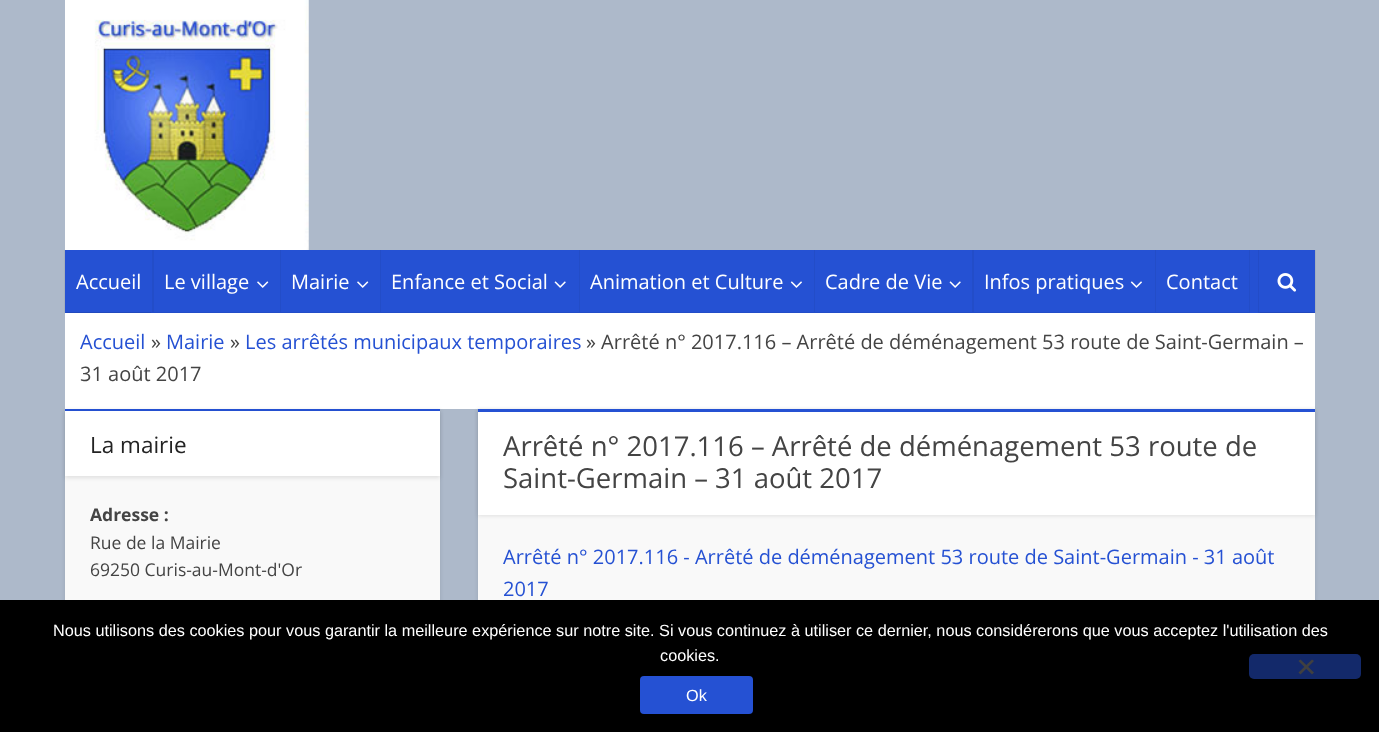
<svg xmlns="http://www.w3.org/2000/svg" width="1379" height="732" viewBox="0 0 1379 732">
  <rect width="100%" height="100%" fill="#adb9ca"/>
  <image x="65" y="0" width="244" height="250" href="img/1.png"/>
  <path d="M65 250h1250v63H65z" fill="#2551d3"/>
  <path d="M66 312V313H154V250H152V312Z" fill="#234dc8"/>
  <path d="M64 250V313H151V312H65V250Z" fill="#0000000d"/>
  <path d="M154 312V313H281V250H280V312Z" fill="#234dc8"/>
  <image x="257" y="281" width="12" height="7" href="img/2.png"/>
  <path d="M281 312V313H381V250H380V312Z" fill="#234dc8"/>
  <image x="357" y="281" width="12" height="7" href="img/2.png"/>
  <path d="M381 312V313H580V250H579V312Z" fill="#234dc8"/>
  <image x="554" y="281" width="12" height="7" href="img/3.png"/>
  <path d="M580 312V313H815V250H814V312Z" fill="#234dc8"/>
  <image x="790" y="281" width="12" height="7" href="img/4.png"/>
  <path d="M815 312V313H974V250H972V312Z" fill="#234dc8"/>
  <image x="949" y="281" width="12" height="7" href="img/3.png"/>
  <path d="M974 312V313H1156V250H1155V312Z" fill="#234dc8"/>
  <image x="1130" y="281" width="12" height="7" href="img/4.png"/>
  <path d="M1156 312V313H1250V250H1249V312Z" fill="#234dc8"/>
  <path d="M1260 312V313H1316V250H1315V312Z" fill="#0000000d"/>
  <path d="M1258 250V313H1314V312H1259V250Z" fill="#0000000d"/>
  <image x="1277" y="273" width="20" height="19" href="img/5.png"/>
  <path d="M65 313h1250v96H65z" fill="#fff"/>
  <path d="M65 410h375v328H65z" fill="#0000001a" filter="blur(2px)"/>
  <path d="M65 476h375v124H65z" fill="#f9f9f9"/>
  <path d="M65 409h375v2H65z" fill="#2551d3"/>
  <path d="M65 413h375v65H65z" fill="#0000001a" filter="blur(2px)"/>
  <path d="M65 411h375v65H65z" fill="#fff"/>
  <path d="M478 410h837v234H478z" fill="#0000001a" filter="blur(2px)"/>
  <path d="M478 515h837v85H478z" fill="#f9f9f9"/>
  <path d="M478 410h837v106H478z" fill="#0000001a" filter="blur(2px)"/>
  <path d="M478 412h837v103H478z" fill="#fff"/>
  <path d="M478 409h837v3H478z" fill="#2551d3"/>
  <path d="M0 600h1379v132H0z" fill="#000"/>
  <rect x="1249" y="654" width="112" height="25" rx="5" fill="#13296a"/>
  <path d="M1312 659.5L1314 661L1300.5 674.5L1298.5 672.5Z" fill="#404040"/>
  <path d="M1298.5 661L1300.5 659.5L1314 672.5L1312 674.5Z" fill="#404040"/>
  <rect x="640" y="676" width="113" height="38" rx="4" fill="#2551d3"/>
  <g font-family="Open Sans" font-size="20" fill="#fff">
    <text x="76" y="289">Accueil</text>
    <text x="164" y="289">Le village</text>
    <text x="291" y="289">Mairie</text>
    <text x="391" y="289">Enfance et Social</text>
    <text x="590" y="289">Animation et Culture</text>
    <text x="825" y="289">Cadre de Vie</text>
    <text x="984" y="289">Infos pratiques</text>
    <text x="1166" y="289">Contact</text>
  </g>
  <text x="80" y="349" font-family="Open Sans" font-size="20" fill="#2551d3">Accueil</text>
  <text x="151" y="349" font-family="Open Sans" font-size="20" fill="#444">»</text>
  <text x="166" y="349" font-family="Open Sans" font-size="20" fill="#2551d3">Mairie</text>
  <text x="230" y="349" font-family="Open Sans" font-size="20" fill="#444">»</text>
  <text x="245" y="349" font-family="Open Sans" font-size="20" fill="#2551d3">Les arrêtés municipaux temporaires</text>
  <g font-family="Open Sans" font-size="20" fill="#444">
    <text x="586" y="349">» Arrêté n° 2017.116 – Arrêté de déménagement 53 route de Saint-Germain –</text>
    <text x="80" y="381">31 août 2017</text>
  </g>
  <text x="90" y="453" font-family="Open Sans" font-size="22.5" fill="#232323">La mairie</text>
  <text x="90" y="521" font-family="Open Sans" font-size="17.5" font-weight="bold" fill="#444">Adresse :</text>
  <g font-family="Open Sans" font-size="17.5" fill="#444">
    <text x="90" y="549">Rue de la Mairie</text>
    <text x="90" y="576">69250 Curis-au-Mont-d'Or</text>
  </g>
  <g font-family="Open Sans" font-size="27.5" fill="#444">
    <text x="503" y="456">Arrêté n° 2017.116 – Arrêté de déménagement 53 route de</text>
    <text x="503" y="488">Saint-Germain – 31 août 2017</text>
  </g>
  <g font-family="Open Sans" font-size="20" fill="#2551d3">
    <text x="503" y="564">Arrêté n° 2017.116 - Arrêté de déménagement 53 route de Saint-Germain - 31 août</text>
    <text x="503" y="596">2017</text>
  </g>
  <g font-family="Liberation Sans" font-size="16.25" fill="#fff">
    <text x="53" y="636">Nous utilisons des cookies pour vous garantir la meilleure expérience sur notre site. Si vous continuez à utiliser ce dernier, nous considérerons que vous acceptez l'utilisation des</text>
    <text x="660" y="661">cookies.</text>
    <text x="686" y="701">Ok</text>
  </g>
</svg>
